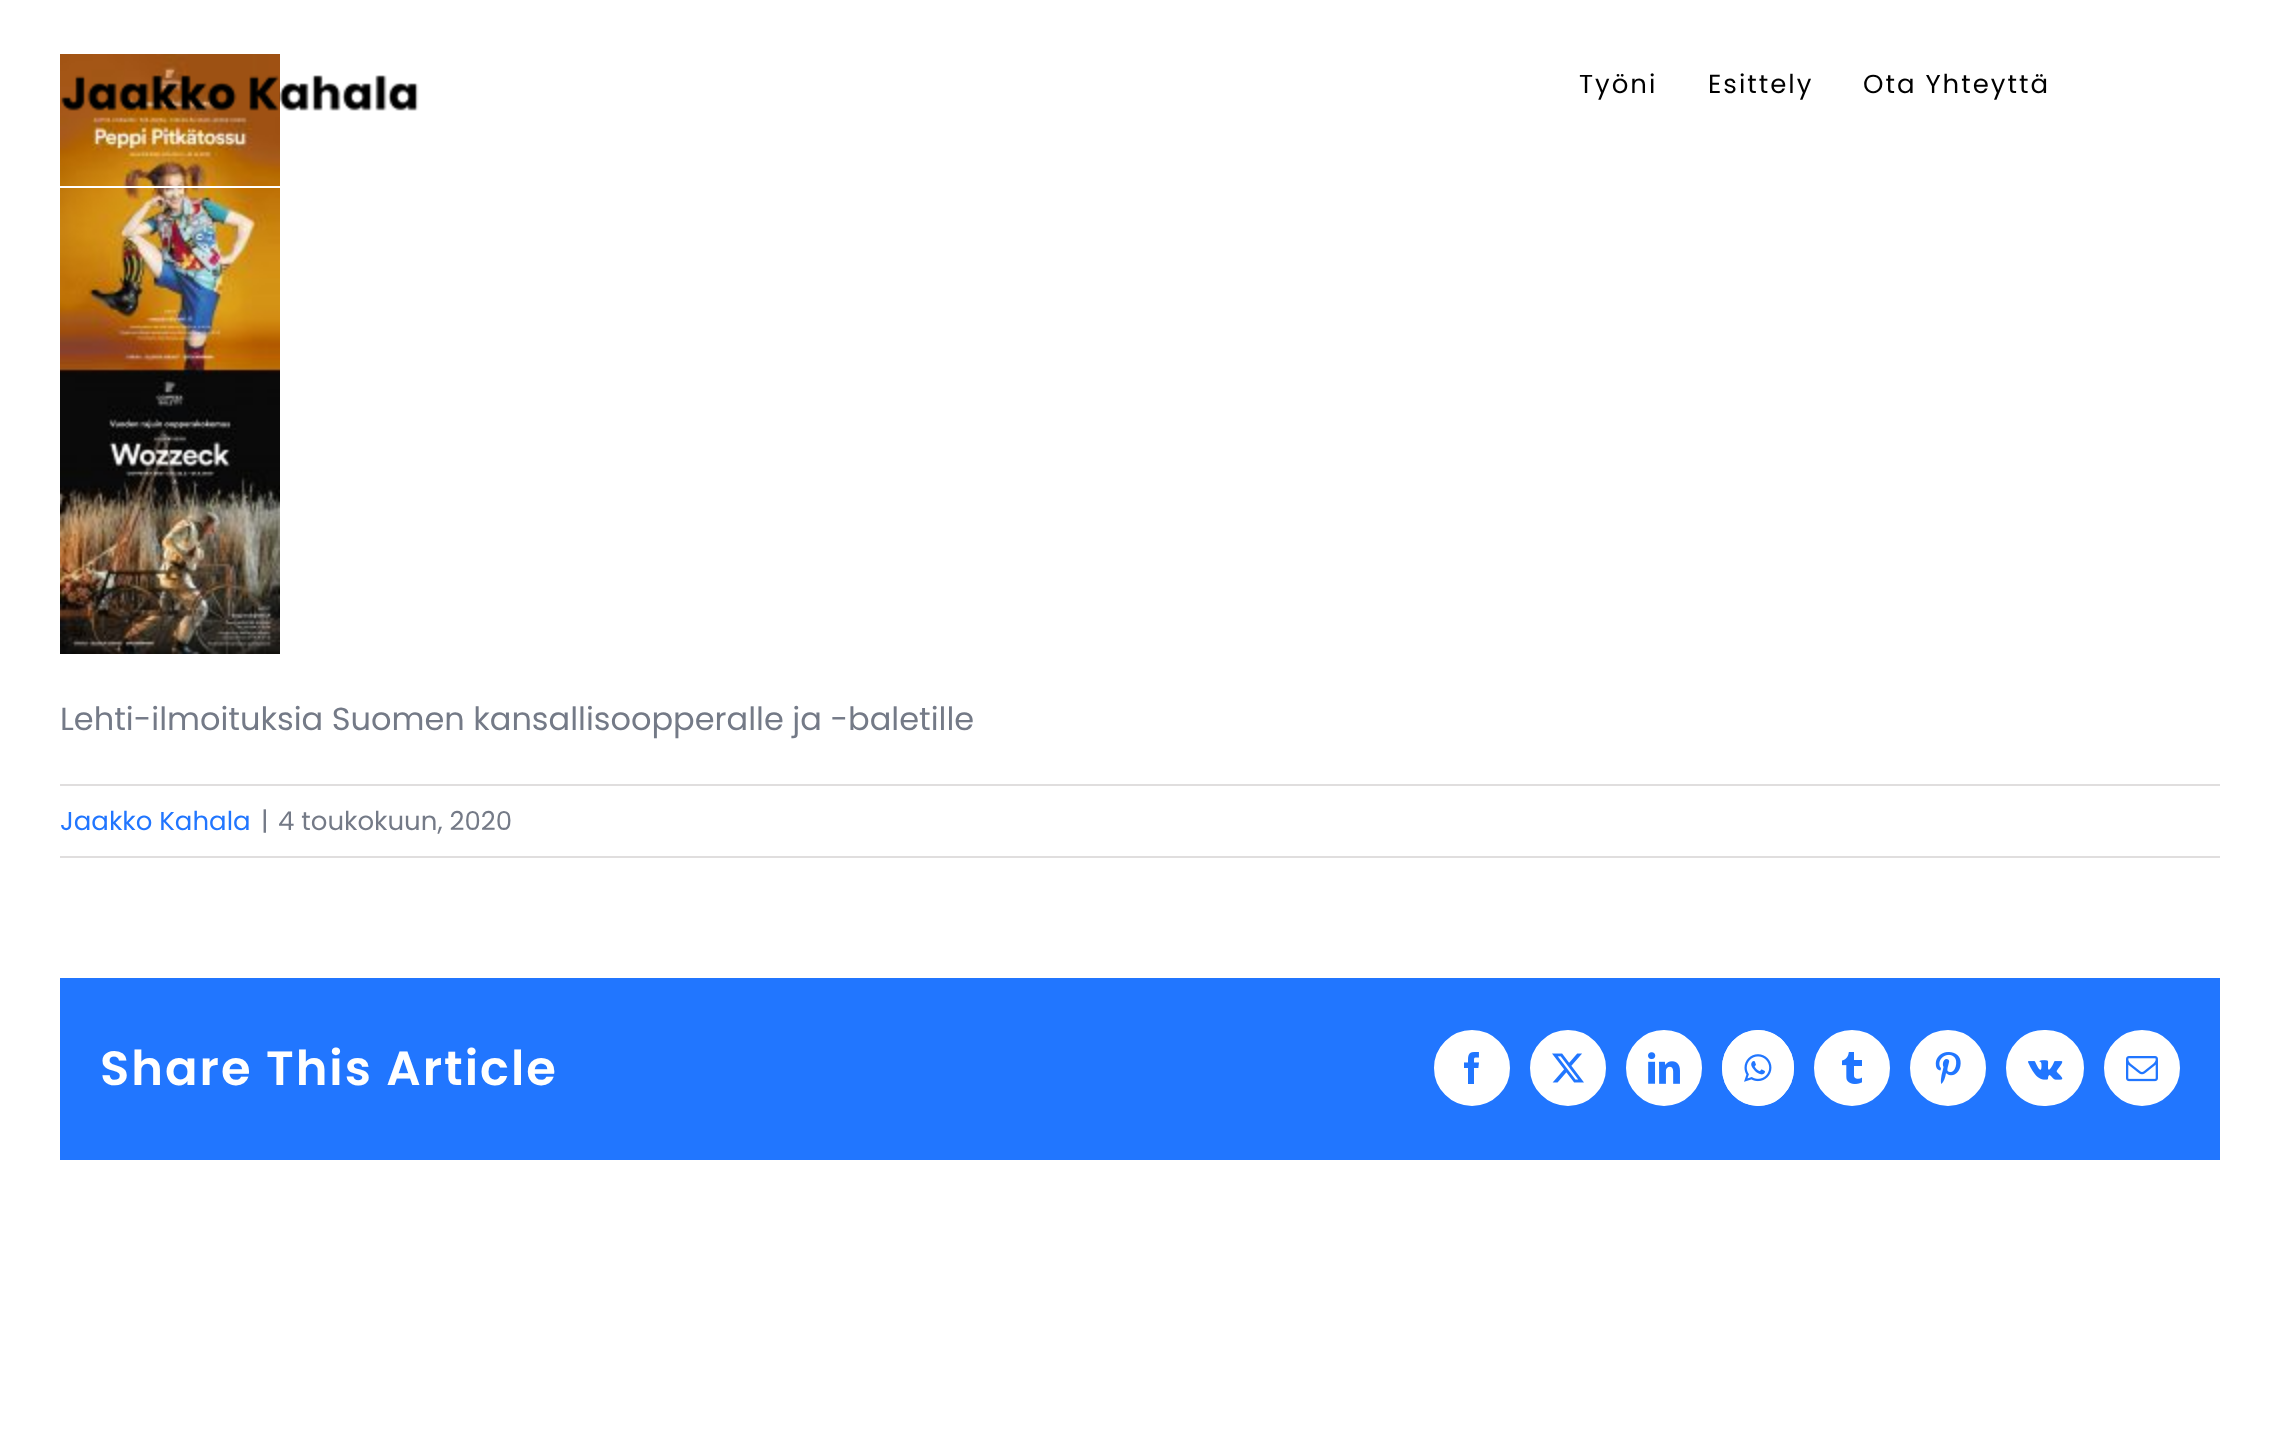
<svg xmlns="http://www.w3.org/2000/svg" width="2280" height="1434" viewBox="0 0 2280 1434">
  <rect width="100%" height="100%" fill="#fff"/>
  <image x="60" y="54" width="220" height="600" href="img/2.png"/>
  <path d="M60 186h220v2H60z" fill="#fff"/>
  <image x="61" y="75" width="358" height="36" href="img/1.png"/>
  <path d="M60 784h2160v2H60z" fill="#e0dede"/>
  <path d="M60 856h2160v2H60z" fill="#e0dede"/>
  <path d="M60 978h2160v182H60z" fill="#2176ff"/>
  <circle cx="1472" cy="1068" r="37" fill="#fff" stroke="#fff" stroke-width="2"/>
  <image x="1464" y="1052" width="15" height="32" href="img/3.png"/>
  <circle cx="1568" cy="1068" r="37" fill="#fff" stroke="#fff" stroke-width="2"/>
  <image x="1552" y="1053" width="32" height="30" href="img/4.png"/>
  <circle cx="1664" cy="1068" r="37" fill="#fff" stroke="#fff" stroke-width="2"/>
  <image x="1648" y="1052" width="32" height="32" href="img/5.png"/>
  <ellipse cx="1758" cy="1068" rx="36" ry="38" fill="#fff"/>
  <path d="M1758 1031C1777.5 1031 1793 1047.5 1793 1068C1793 1088.5 1777.5 1105 1758 1105C1738.5 1105 1723 1088.5 1723 1068C1723 1047.5 1738.5 1031 1758 1031Z" fill="none" stroke="#fff" stroke-width="2"/>
  <image x="1744" y="1054" width="28" height="28" href="img/6.png"/>
  <circle cx="1852" cy="1068" r="37" fill="#fff" stroke="#fff" stroke-width="2"/>
  <image x="1842" y="1052" width="20" height="32" href="img/7.png"/>
  <circle cx="1948" cy="1068" r="37" fill="#fff" stroke="#fff" stroke-width="2"/>
  <image x="1935" y="1052" width="26" height="32" href="img/8.png"/>
  <rect x="2007" y="1031" width="76" height="74" rx="37" fill="#fff" stroke="#fff" stroke-width="2"/>
  <image x="2028" y="1060" width="35" height="20" href="img/9.png"/>
  <circle cx="2142" cy="1068" r="37" fill="#fff" stroke="#fff" stroke-width="2"/>
  <image x="2126" y="1056" width="32" height="26" href="img/10.png"/>
  <g font-family="Poppins" font-size="26" letter-spacing="2" fill="#000">
    <text x="1579" y="93">Työni</text>
    <text x="1708" y="93">Esittely</text>
    <text x="1863" y="93">Ota Yhteyttä</text>
  </g>
  <text x="60" y="730" font-family="Poppins" font-size="32" fill="#747a87">Lehti-ilmoituksia Suomen kansallisoopperalle ja -baletille</text>
  <text x="60" y="830" font-family="Poppins" font-size="26" fill="#2176ff">Jaakko Kahala</text>
  <g font-family="Poppins" font-size="26" fill="#747a87">
    <text x="261" y="830">|</text>
    <text x="278" y="830">4 toukokuun, 2020</text>
  </g>
  <text x="100" y="1085" font-family="Poppins" font-size="48" font-weight="600" letter-spacing="2" fill="#fff">Share This Article</text>
</svg>
